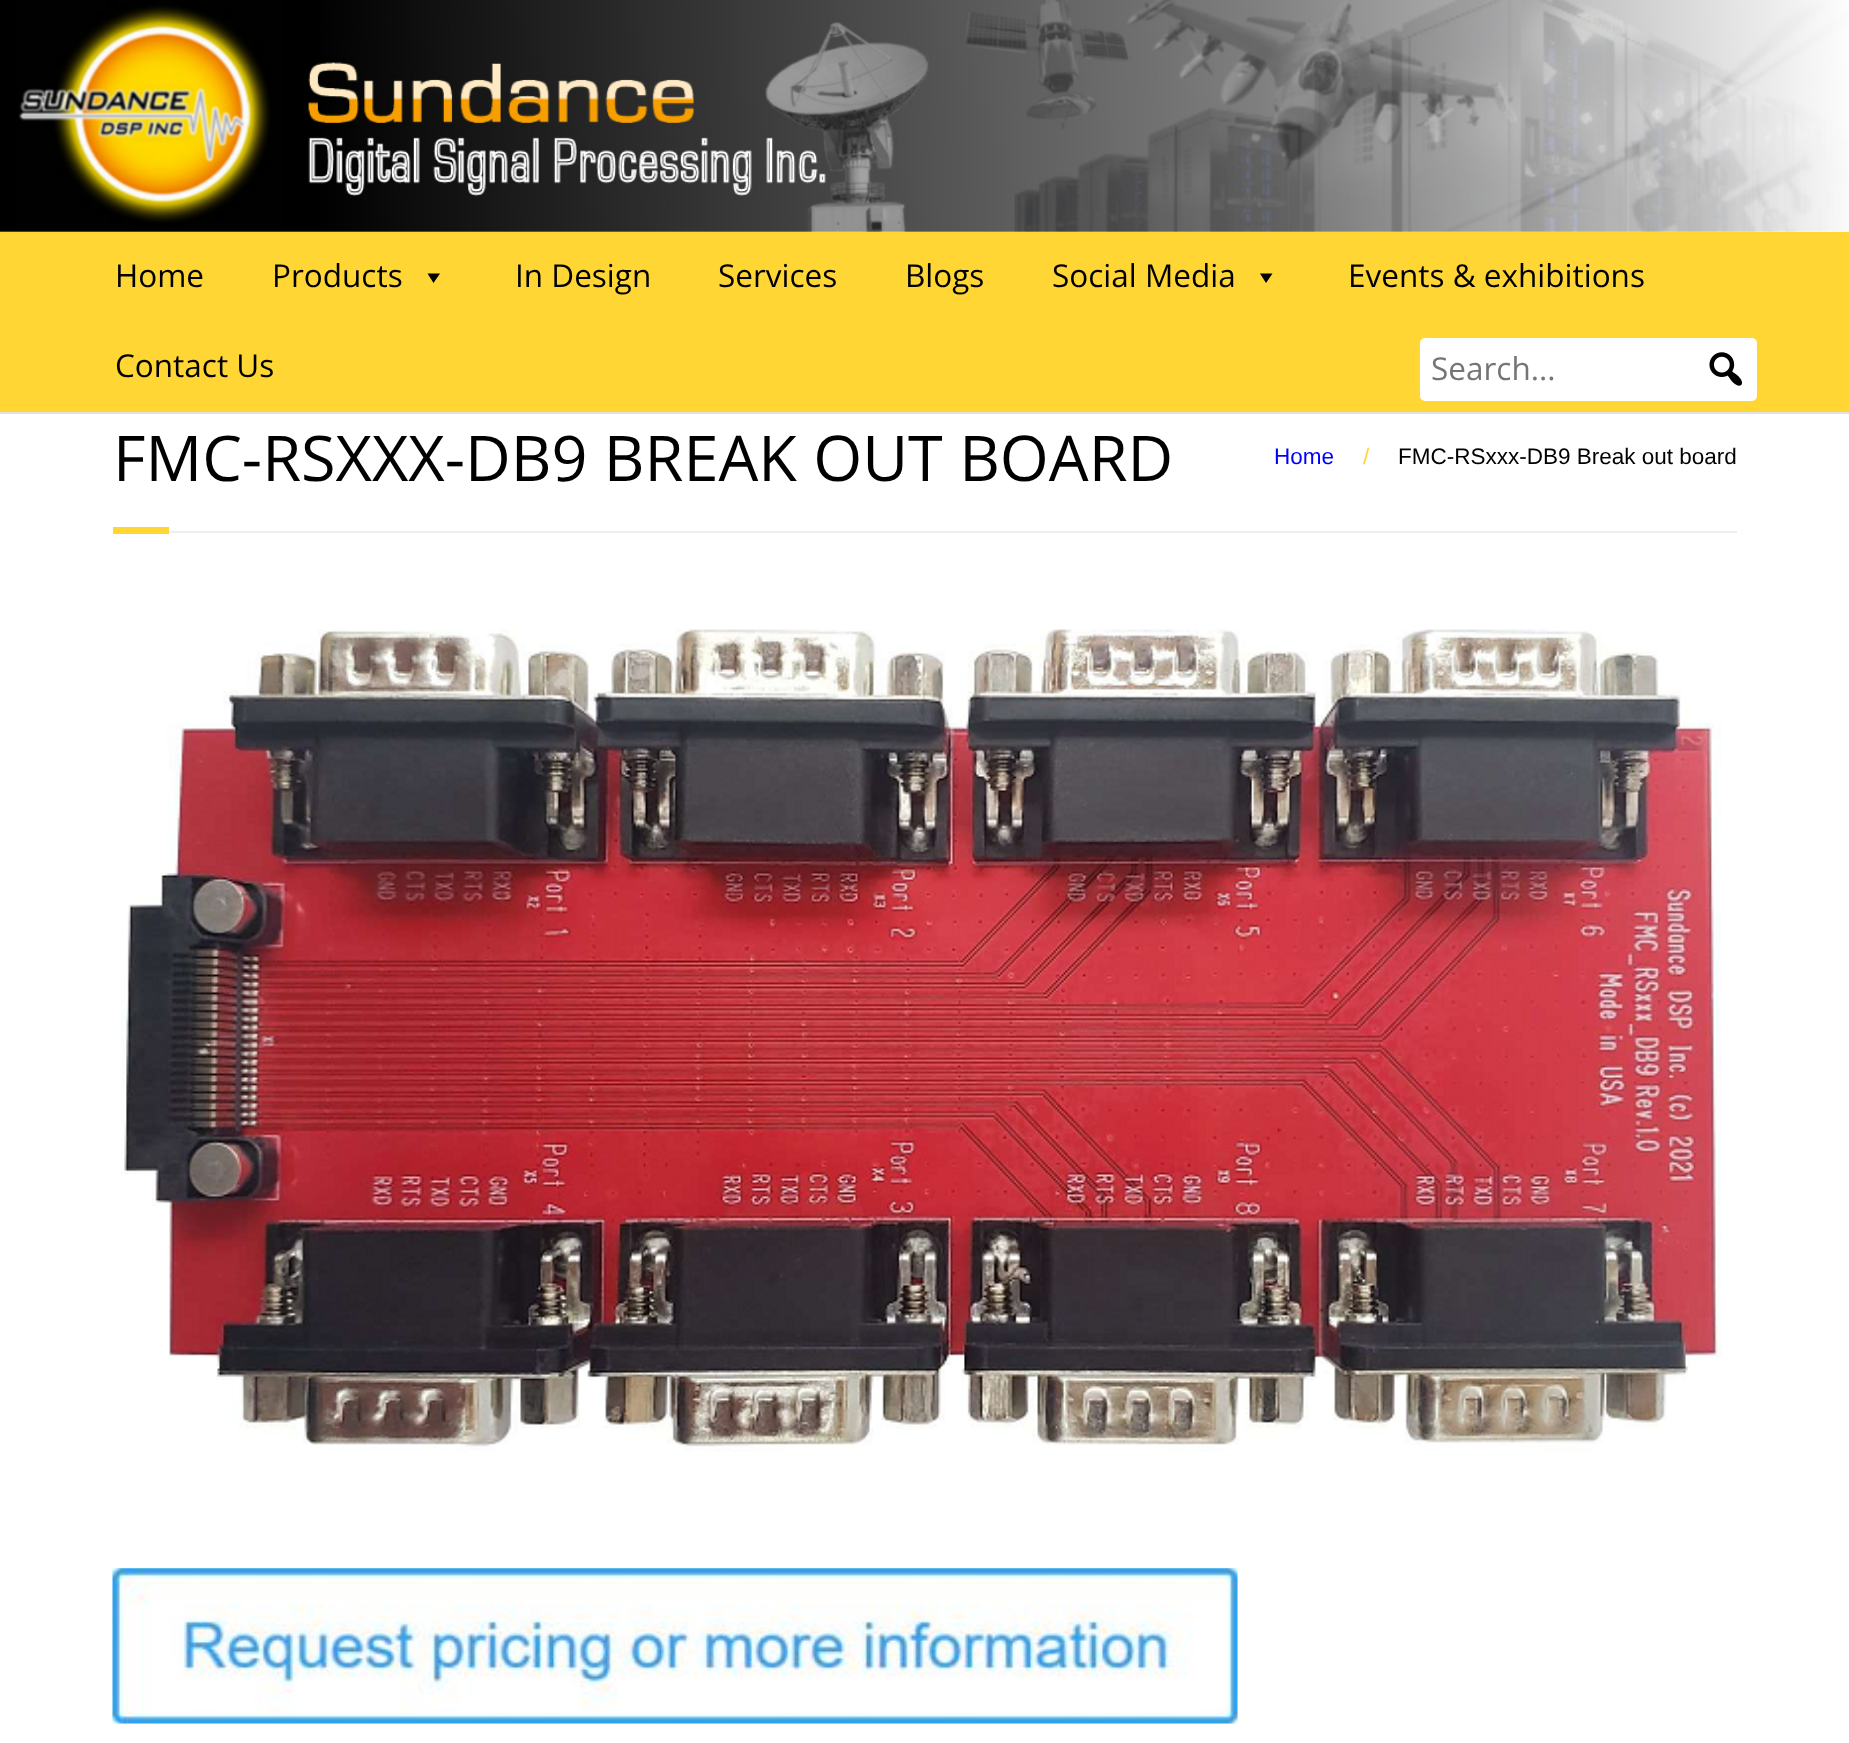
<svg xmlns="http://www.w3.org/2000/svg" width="1849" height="1743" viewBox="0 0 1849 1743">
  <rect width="100%" height="100%" fill="#fff"/>
  <image x="0" y="0" width="1849" height="232" href="img/1.png"/>
  <path d="M0 232h1849v180H0z" fill="#ffd633"/>
  <path d="M440 273.5L433.5 283L427.5 273.5Z" fill="#000"/>
  <path d="M1272.5 273.5L1266 283L1260 273.5Z" fill="#000"/>
  <rect x="1420" y="338" width="337" height="63" rx="5" fill="#fff"/>
  <image x="1709" y="352" width="33" height="34" href="img/2.png"/>
  <path d="M0 412h1849v2H0z" fill="#e0e0e0"/>
  <path d="M113 527h56v7H113z" fill="#ffd633"/>
  <path d="M169 531h1568v2H169z" fill="#eee"/>
  <image x="121" y="629" width="1601" height="823" href="img/3.png"/>
  <image x="112" y="1568" width="1126" height="156" href="img/4.png"/>
  <g font-family="Open Sans" font-size="31.5" fill="#000">
    <text x="115" y="287">Home</text>
    <text x="272" y="287">Products</text>
    <text x="515" y="287">In Design</text>
    <text x="718" y="287">Services</text>
    <text x="905" y="287">Blogs</text>
    <text x="1052" y="287">Social Media</text>
    <text x="1348" y="287">Events &amp; exhibitions</text>
    <text x="115" y="377">Contact Us</text>
  </g>
  <text x="1431" y="380" font-family="Open Sans" font-size="31.5" fill="#757575">Search...</text>
  <text x="113" y="481" font-family="Open Sans" font-size="63" fill="#000">FMC-RSXXX-DB9 BREAK OUT BOARD</text>
  <text x="1274" y="464" font-family="Liberation Sans" font-size="22.5" fill="#00f">Home</text>
  <text x="1363" y="464" font-family="Liberation Sans" font-size="22.5" fill="#ffd633">/</text>
  <text x="1398" y="464" font-family="Liberation Sans" font-size="22.5" fill="#000">FMC-RSxxx-DB9 Break out board</text>
</svg>
